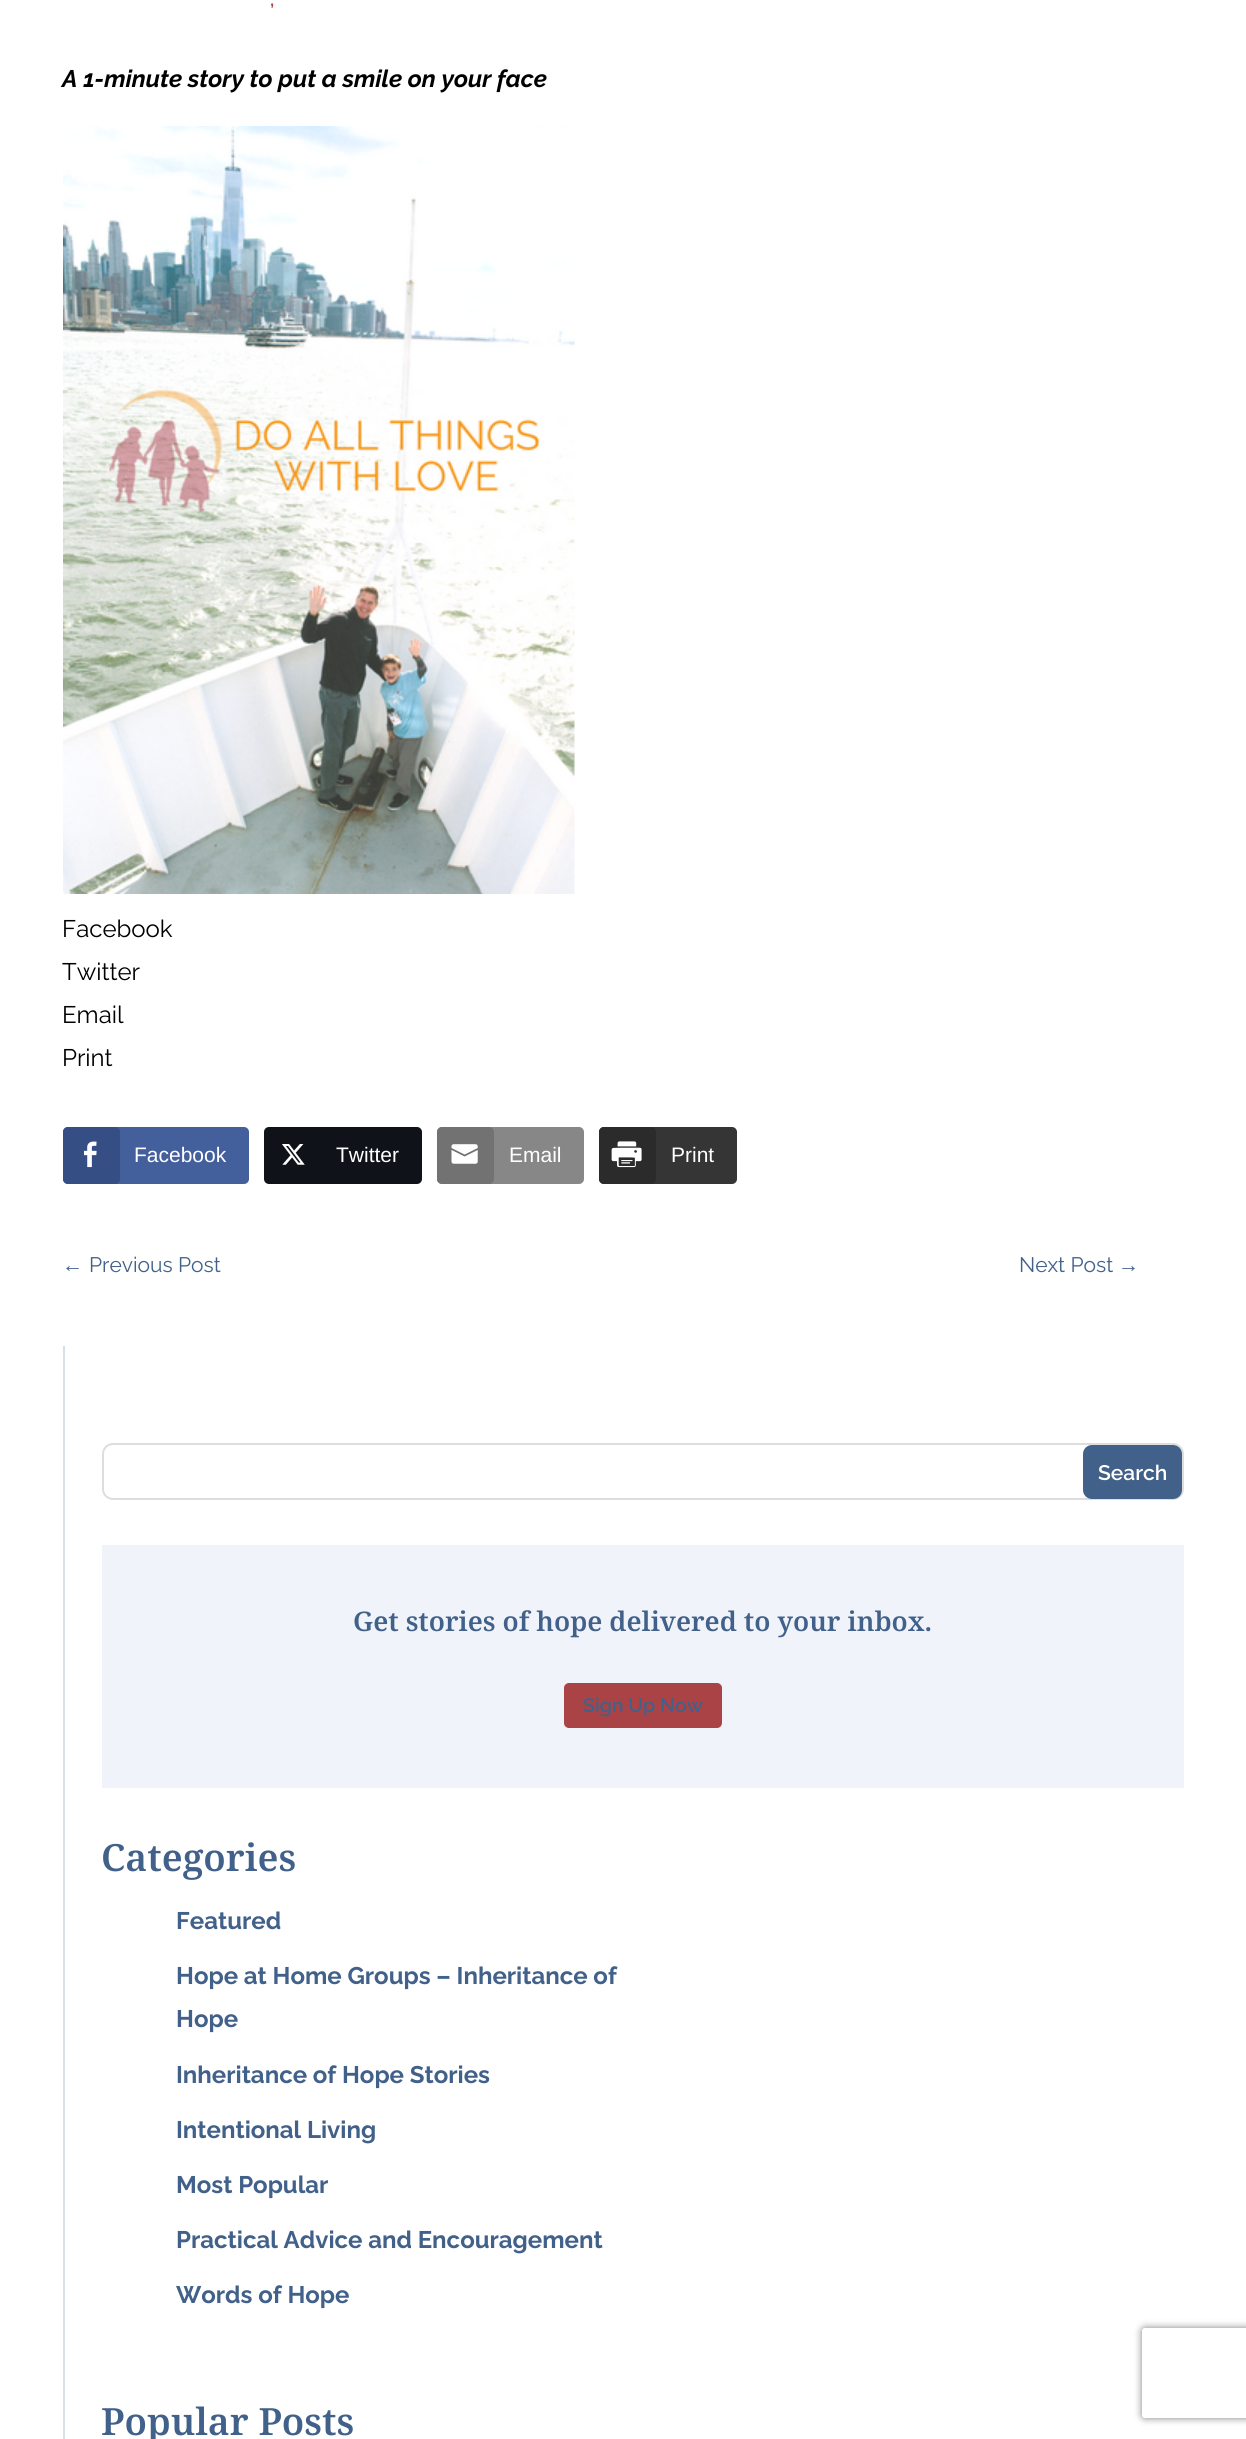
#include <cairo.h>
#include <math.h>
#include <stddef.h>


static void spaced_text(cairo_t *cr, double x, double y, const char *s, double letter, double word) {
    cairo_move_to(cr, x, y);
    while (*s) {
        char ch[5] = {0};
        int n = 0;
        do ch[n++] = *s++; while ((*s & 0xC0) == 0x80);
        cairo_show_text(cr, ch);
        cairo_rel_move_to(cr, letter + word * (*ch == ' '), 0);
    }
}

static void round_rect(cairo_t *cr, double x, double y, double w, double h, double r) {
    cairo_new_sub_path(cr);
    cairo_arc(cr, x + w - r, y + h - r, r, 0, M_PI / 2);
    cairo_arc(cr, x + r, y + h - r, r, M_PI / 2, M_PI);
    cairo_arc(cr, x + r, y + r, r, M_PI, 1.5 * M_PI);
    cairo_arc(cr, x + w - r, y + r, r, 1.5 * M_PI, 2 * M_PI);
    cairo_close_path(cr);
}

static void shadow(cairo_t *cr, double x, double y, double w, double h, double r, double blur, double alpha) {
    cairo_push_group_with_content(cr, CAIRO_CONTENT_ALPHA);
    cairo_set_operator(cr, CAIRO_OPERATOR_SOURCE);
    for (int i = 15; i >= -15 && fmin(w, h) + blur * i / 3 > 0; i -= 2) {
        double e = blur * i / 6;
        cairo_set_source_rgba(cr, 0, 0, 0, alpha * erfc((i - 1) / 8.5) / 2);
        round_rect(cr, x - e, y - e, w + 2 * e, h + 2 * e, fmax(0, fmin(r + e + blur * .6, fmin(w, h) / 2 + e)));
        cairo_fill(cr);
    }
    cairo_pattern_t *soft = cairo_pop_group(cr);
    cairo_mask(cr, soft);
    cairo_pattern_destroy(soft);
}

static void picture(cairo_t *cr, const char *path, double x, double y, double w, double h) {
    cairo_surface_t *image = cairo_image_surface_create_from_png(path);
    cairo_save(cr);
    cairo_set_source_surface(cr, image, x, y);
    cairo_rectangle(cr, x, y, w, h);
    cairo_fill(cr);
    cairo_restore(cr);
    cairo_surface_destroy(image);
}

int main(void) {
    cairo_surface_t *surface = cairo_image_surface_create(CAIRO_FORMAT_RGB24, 1246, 2439);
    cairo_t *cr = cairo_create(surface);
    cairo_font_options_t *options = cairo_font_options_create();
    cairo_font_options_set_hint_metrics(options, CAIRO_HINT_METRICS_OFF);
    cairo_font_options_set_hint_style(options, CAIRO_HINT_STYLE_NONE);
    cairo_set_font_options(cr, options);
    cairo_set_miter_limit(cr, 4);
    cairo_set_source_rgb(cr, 1, 1, 1);
    cairo_paint(cr);
    cairo_select_font_face(cr, "Raleway SemiBold", CAIRO_FONT_SLANT_NORMAL, CAIRO_FONT_WEIGHT_NORMAL);
    cairo_set_font_size(cr, 19.5);
    cairo_set_source_rgb(cr, 0.667, 0.263, 0.275);
    spaced_text(cr, 270, 6, ",", 2, 0);
    cairo_select_font_face(cr, "Raleway", CAIRO_FONT_SLANT_ITALIC, CAIRO_FONT_WEIGHT_BOLD);
    cairo_set_font_size(cr, 24);
    cairo_set_source_rgb(cr, 0, 0, 0);
    cairo_move_to(cr, 62, 87);
    cairo_show_text(cr, "A 1-minute story to put a smile on your face");
    picture(cr, "img1.png", 63, 126, 512, 768);
    cairo_select_font_face(cr, "Raleway", CAIRO_FONT_SLANT_NORMAL, CAIRO_FONT_WEIGHT_NORMAL);
    cairo_move_to(cr, 62, 937);
    cairo_show_text(cr, "Facebook");
    cairo_move_to(cr, 62, 980);
    cairo_show_text(cr, "Twitter");
    cairo_move_to(cr, 62, 1023);
    cairo_show_text(cr, "Email");
    cairo_move_to(cr, 62, 1066);
    cairo_show_text(cr, "Print");
    cairo_set_source_rgb(cr, 0.263, 0.376, 0.612);
    round_rect(cr, 63, 1127, 186, 57, 5);
    cairo_fill(cr);
    cairo_set_source_rgb(cr, 0.208, 0.306, 0.514);
    round_rect(cr, 63, 1127, 57, 57, 5);
    cairo_fill(cr);
    picture(cr, "img2.png", 84, 1141, 13, 27);
    cairo_select_font_face(cr, "Liberation Sans", CAIRO_FONT_SLANT_NORMAL, CAIRO_FONT_WEIGHT_NORMAL);
    cairo_set_font_size(cr, 21);
    cairo_set_source_rgb(cr, 1, 1, 1);
    cairo_move_to(cr, 134, 1162);
    cairo_show_text(cr, "Facebook");
    cairo_set_source_rgb(cr, 0.059, 0.078, 0.098);
    round_rect(cr, 264, 1127, 158, 57, 5);
    cairo_fill(cr);
    picture(cr, "img3.png", 282, 1144, 23, 21);
    cairo_set_source_rgb(cr, 1, 1, 1);
    cairo_move_to(cr, 336, 1162);
    cairo_show_text(cr, "Twitter");
    cairo_set_source_rgb(cr, 0.529, 0.529, 0.529);
    round_rect(cr, 437, 1127, 147, 57, 5);
    cairo_fill(cr);
    cairo_set_source_rgb(cr, 0.447, 0.447, 0.447);
    round_rect(cr, 437, 1127, 57, 57, 5);
    cairo_fill(cr);
    picture(cr, "img4.png", 451, 1144, 27, 20);
    cairo_set_source_rgb(cr, 1, 1, 1);
    cairo_move_to(cr, 509, 1162);
    cairo_show_text(cr, "Email");
    cairo_set_source_rgb(cr, 0.208, 0.208, 0.208);
    round_rect(cr, 599, 1127, 138, 57, 5);
    cairo_fill(cr);
    cairo_set_source_rgb(cr, 0.169, 0.169, 0.169);
    round_rect(cr, 599, 1127, 57, 57, 5);
    cairo_fill(cr);
    picture(cr, "img5.png", 611, 1141, 31, 27);
    cairo_set_source_rgb(cr, 1, 1, 1);
    cairo_move_to(cr, 671, 1162);
    cairo_show_text(cr, "Print");
    cairo_select_font_face(cr, "Liberation Serif", CAIRO_FONT_SLANT_NORMAL, CAIRO_FONT_WEIGHT_NORMAL);
    cairo_set_source_rgb(cr, 0.255, 0.38, 0.541);
    cairo_move_to(cr, 62, 1272);
    cairo_show_text(cr, "←");
    cairo_select_font_face(cr, "Raleway", CAIRO_FONT_SLANT_NORMAL, CAIRO_FONT_WEIGHT_NORMAL);
    cairo_move_to(cr, 89, 1272);
    cairo_show_text(cr, "Previous Post");
    cairo_move_to(cr, 1019, 1272);
    cairo_show_text(cr, "Next Post");
    cairo_select_font_face(cr, "Liberation Serif", CAIRO_FONT_SLANT_NORMAL, CAIRO_FONT_WEIGHT_NORMAL);
    cairo_move_to(cr, 1118, 1272);
    cairo_show_text(cr, "→");
    cairo_set_source_rgb(cr, 0.851, 0.875, 0.91);
    cairo_rectangle(cr, 63, 1346, 2, 1093);
    cairo_fill(cr);
    round_rect(cr, 103, 1444, 1080, 55, 10);
    cairo_set_source_rgb(cr, 0.867, 0.867, 0.867);
    cairo_stroke(cr);
    cairo_set_source_rgb(cr, 0.255, 0.38, 0.541);
    round_rect(cr, 1083, 1445, 99, 54, 9);
    cairo_fill(cr);
    cairo_select_font_face(cr, "Raleway SemiBold", CAIRO_FONT_SLANT_NORMAL, CAIRO_FONT_WEIGHT_NORMAL);
    cairo_set_source_rgb(cr, 1, 1, 1);
    cairo_move_to(cr, 1098, 1480);
    cairo_show_text(cr, "Search");
    cairo_set_source_rgb(cr, 0.941, 0.953, 0.973);
    cairo_rectangle(cr, 102, 1545, 1082, 243);
    cairo_fill(cr);
    cairo_select_font_face(cr, "Noto Serif SemiBold", CAIRO_FONT_SLANT_NORMAL, CAIRO_FONT_WEIGHT_NORMAL);
    cairo_set_font_size(cr, 27);
    cairo_set_source_rgb(cr, 0.255, 0.38, 0.541);
    cairo_move_to(cr, 353, 1631);
    cairo_show_text(cr, "Get stories of hope delivered to your inbox.");
    cairo_set_source_rgb(cr, 0.667, 0.263, 0.275);
    round_rect(cr, 564, 1683, 158, 45, 5);
    cairo_fill(cr);
    cairo_select_font_face(cr, "Raleway SemiBold", CAIRO_FONT_SLANT_NORMAL, CAIRO_FONT_WEIGHT_NORMAL);
    cairo_set_font_size(cr, 19.5);
    cairo_set_source_rgb(cr, 0.255, 0.38, 0.541);
    cairo_move_to(cr, 583, 1712);
    cairo_show_text(cr, "Sign Up Now");
    cairo_select_font_face(cr, "Noto Serif SemiBold", CAIRO_FONT_SLANT_NORMAL, CAIRO_FONT_WEIGHT_NORMAL);
    cairo_set_font_size(cr, 37.5);
    cairo_move_to(cr, 101, 1871);
    cairo_show_text(cr, "Categories");
    cairo_select_font_face(cr, "Raleway", CAIRO_FONT_SLANT_NORMAL, CAIRO_FONT_WEIGHT_BOLD);
    cairo_set_font_size(cr, 24);
    cairo_move_to(cr, 176, 1929);
    cairo_show_text(cr, "Featured");
    cairo_move_to(cr, 176, 1984);
    cairo_show_text(cr, "Hope at Home Groups – Inheritance of");
    cairo_move_to(cr, 176, 2027);
    cairo_show_text(cr, "Hope");
    cairo_move_to(cr, 176, 2083);
    cairo_show_text(cr, "Inheritance of Hope Stories");
    cairo_move_to(cr, 176, 2138);
    cairo_show_text(cr, "Intentional Living");
    cairo_move_to(cr, 176, 2193);
    cairo_show_text(cr, "Most Popular");
    cairo_move_to(cr, 176, 2248);
    cairo_show_text(cr, "Practical Advice and Encouragement");
    cairo_move_to(cr, 176, 2303);
    cairo_show_text(cr, "Words of Hope");
    cairo_select_font_face(cr, "Noto Serif SemiBold", CAIRO_FONT_SLANT_NORMAL, CAIRO_FONT_WEIGHT_NORMAL);
    cairo_set_font_size(cr, 37.5);
    cairo_move_to(cr, 101, 2435);
    cairo_show_text(cr, "Popular Posts");
    cairo_save(cr);
    cairo_set_fill_rule(cr, CAIRO_FILL_RULE_EVEN_ODD);
    cairo_new_path(cr);
    cairo_move_to(cr, 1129, 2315);
    cairo_line_to(cr, 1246, 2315);
    cairo_line_to(cr, 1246, 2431);
    cairo_line_to(cr, 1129, 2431);
    cairo_close_path(cr);
    cairo_move_to(cr, 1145, 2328);
    cairo_line_to(cr, 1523, 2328);
    cairo_curve_to(cr, 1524.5, 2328, 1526, 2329.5, 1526, 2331);
    cairo_line_to(cr, 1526, 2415);
    cairo_curve_to(cr, 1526, 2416.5, 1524.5, 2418, 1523, 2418);
    cairo_line_to(cr, 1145, 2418);
    cairo_curve_to(cr, 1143.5, 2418, 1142, 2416.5, 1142, 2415);
    cairo_line_to(cr, 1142, 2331);
    cairo_curve_to(cr, 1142, 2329.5, 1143.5, 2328, 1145, 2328);
    cairo_close_path(cr);
    cairo_clip(cr);
    cairo_set_source_rgb(cr, 0.502, 0.502, 0.502);
    shadow(cr, 1142, 2328, 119, 90, 3, 4, 1);
    cairo_restore(cr);
    cairo_surface_write_to_png(surface, "page.png");
    cairo_font_options_destroy(options);
    cairo_destroy(cr);
    cairo_surface_destroy(surface);
    return 0;
}
